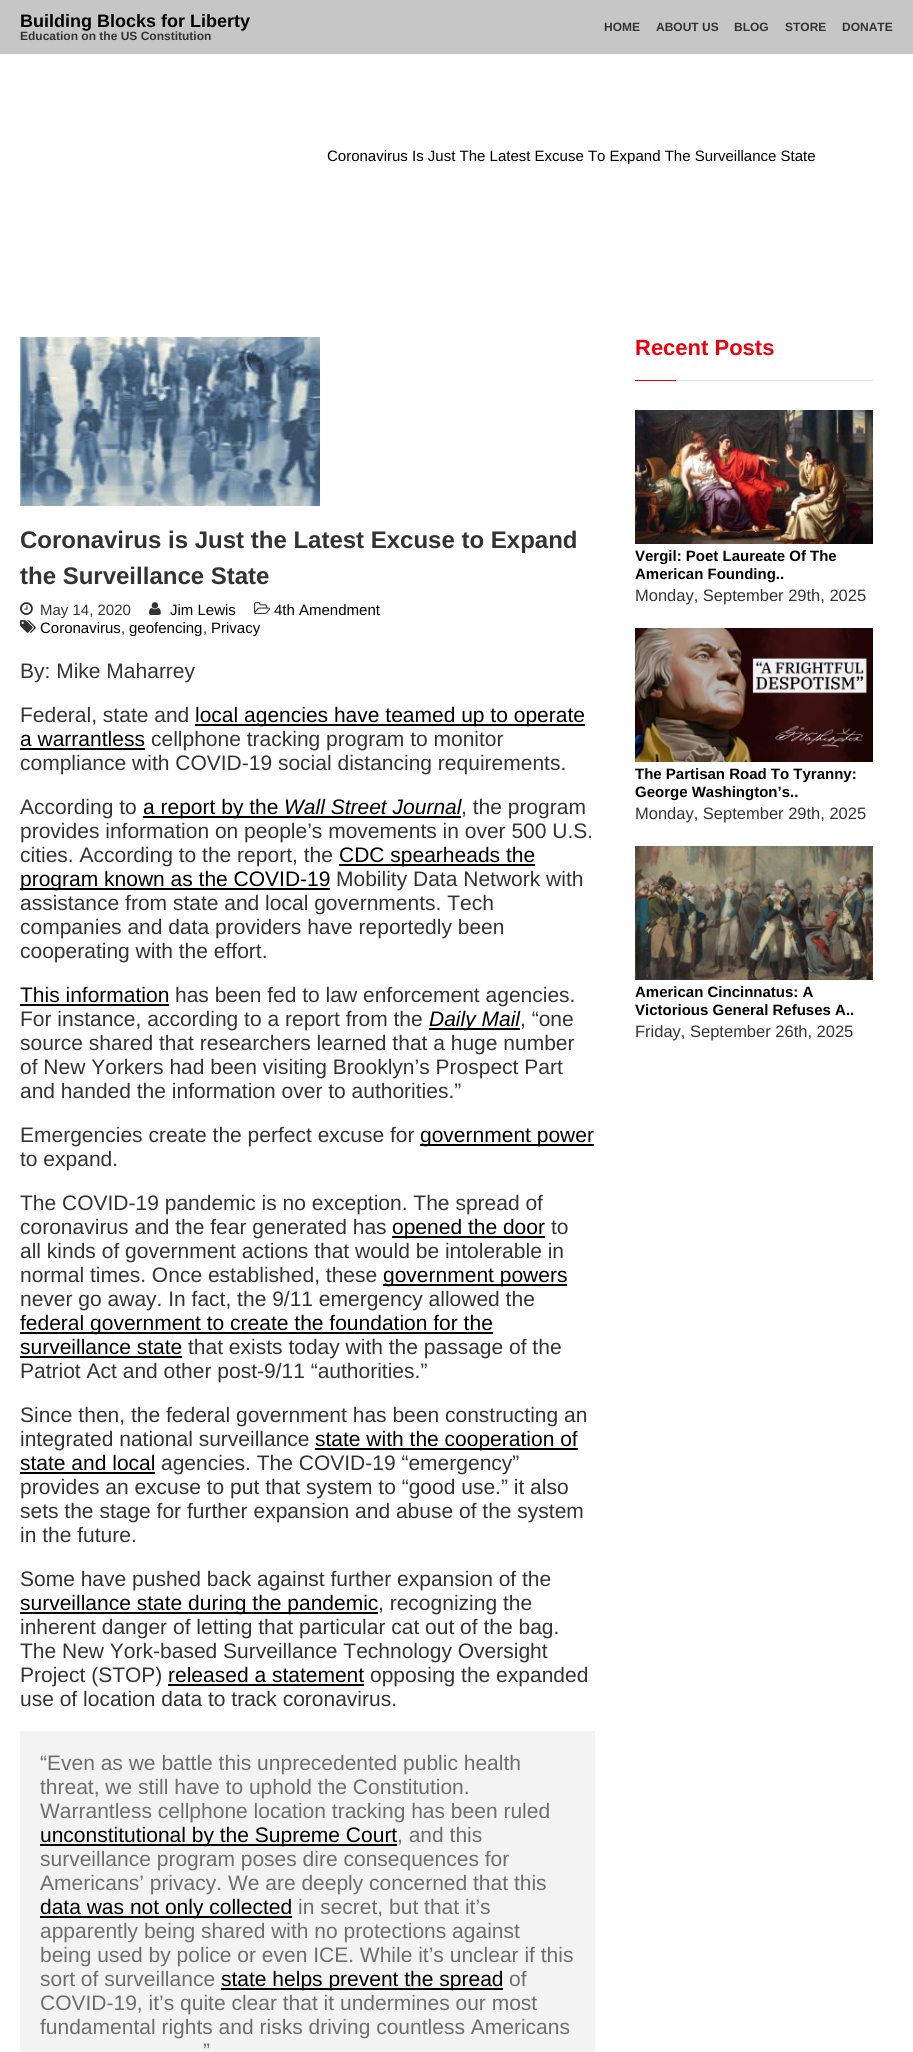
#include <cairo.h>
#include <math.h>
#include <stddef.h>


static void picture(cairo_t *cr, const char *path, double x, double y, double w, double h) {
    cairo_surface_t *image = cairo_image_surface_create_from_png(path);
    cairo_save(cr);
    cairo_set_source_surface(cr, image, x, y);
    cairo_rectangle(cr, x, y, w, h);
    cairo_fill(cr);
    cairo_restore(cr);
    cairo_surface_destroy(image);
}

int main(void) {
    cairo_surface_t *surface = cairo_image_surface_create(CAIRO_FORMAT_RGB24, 913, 2052);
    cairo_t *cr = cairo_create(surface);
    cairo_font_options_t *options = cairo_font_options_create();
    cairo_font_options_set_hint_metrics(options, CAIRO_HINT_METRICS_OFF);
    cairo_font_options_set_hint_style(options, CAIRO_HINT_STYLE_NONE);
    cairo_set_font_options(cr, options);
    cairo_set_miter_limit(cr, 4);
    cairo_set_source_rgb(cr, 1, 1, 1);
    cairo_paint(cr);
    cairo_set_source_rgb(cr, 0.776, 0.776, 0.776);
    cairo_rectangle(cr, 0, 0, 913, 54);
    cairo_fill(cr);
    cairo_select_font_face(cr, "Liberation Sans", CAIRO_FONT_SLANT_NORMAL, CAIRO_FONT_WEIGHT_BOLD);
    cairo_set_font_size(cr, 18);
    cairo_set_source_rgb(cr, 0, 0, 0);
    cairo_move_to(cr, 20, 27);
    cairo_show_text(cr, "Building Blocks for Liberty");
    cairo_set_font_size(cr, 12);
    cairo_set_source_rgb(cr, 0.2, 0.2, 0.2);
    cairo_move_to(cr, 20, 40);
    cairo_show_text(cr, "Education on the US Constitution");
    cairo_move_to(cr, 604, 31);
    cairo_show_text(cr, "HOME");
    cairo_move_to(cr, 656, 31);
    cairo_show_text(cr, "ABOUT US");
    cairo_move_to(cr, 734, 31);
    cairo_show_text(cr, "BLOG");
    cairo_move_to(cr, 785, 31);
    cairo_show_text(cr, "STORE");
    cairo_move_to(cr, 842, 31);
    cairo_show_text(cr, "DONATE");
    cairo_select_font_face(cr, "Liberation Sans", CAIRO_FONT_SLANT_NORMAL, CAIRO_FONT_WEIGHT_NORMAL);
    cairo_set_font_size(cr, 15);
    cairo_set_source_rgb(cr, 0, 0, 0);
    cairo_move_to(cr, 327, 161);
    cairo_show_text(cr, "Coronavirus Is Just The Latest Excuse To Expand The Surveillance State");
    picture(cr, "img1.png", 20, 337, 300, 169);
    cairo_select_font_face(cr, "Liberation Sans", CAIRO_FONT_SLANT_NORMAL, CAIRO_FONT_WEIGHT_BOLD);
    cairo_set_font_size(cr, 24);
    cairo_set_source_rgb(cr, 0.2, 0.2, 0.2);
    cairo_move_to(cr, 20, 548);
    cairo_show_text(cr, "Coronavirus is Just the Latest Excuse to Expand");
    cairo_move_to(cr, 20, 584);
    cairo_show_text(cr, "the Surveillance State");
    picture(cr, "img2.png", 20, 602, 13, 13);
    cairo_select_font_face(cr, "Liberation Sans", CAIRO_FONT_SLANT_NORMAL, CAIRO_FONT_WEIGHT_NORMAL);
    cairo_set_font_size(cr, 15);
    cairo_move_to(cr, 40, 615);
    cairo_show_text(cr, "May 14, 2020");
    picture(cr, "img3.png", 149, 602, 12, 13);
    cairo_set_source_rgb(cr, 0, 0, 0);
    cairo_move_to(cr, 170, 615);
    cairo_show_text(cr, "Jim Lewis");
    picture(cr, "img4.png", 254, 602, 16, 12);
    cairo_move_to(cr, 274, 615);
    cairo_show_text(cr, "4th Amendment");
    picture(cr, "img5.png", 20, 620, 16, 13);
    cairo_move_to(cr, 40, 633);
    cairo_show_text(cr, "Coronavirus");
    cairo_set_source_rgb(cr, 0.2, 0.2, 0.2);
    cairo_move_to(cr, 121, 633);
    cairo_show_text(cr, ",");
    cairo_set_source_rgb(cr, 0, 0, 0);
    cairo_move_to(cr, 129, 633);
    cairo_show_text(cr, "geofencing");
    cairo_set_source_rgb(cr, 0.2, 0.2, 0.2);
    cairo_move_to(cr, 203, 633);
    cairo_show_text(cr, ",");
    cairo_set_source_rgb(cr, 0, 0, 0);
    cairo_move_to(cr, 211, 633);
    cairo_show_text(cr, "Privacy");
    cairo_set_font_size(cr, 21);
    cairo_set_source_rgb(cr, 0.2, 0.2, 0.2);
    cairo_move_to(cr, 20, 678);
    cairo_show_text(cr, "By: Mike Maharrey");
    cairo_move_to(cr, 20, 722);
    cairo_show_text(cr, "Federal, state and");
    cairo_set_source_rgb(cr, 0, 0, 0);
    cairo_rectangle(cr, 195, 724, 390, 2);
    cairo_fill(cr);
    cairo_move_to(cr, 195, 722);
    cairo_show_text(cr, "local agencies have teamed up to operate");
    cairo_move_to(cr, 20, 746);
    cairo_show_text(cr, "a warrantless");
    cairo_rectangle(cr, 20, 748, 125, 2);
    cairo_fill(cr);
    cairo_set_source_rgb(cr, 0.2, 0.2, 0.2);
    cairo_move_to(cr, 151, 746);
    cairo_show_text(cr, "cellphone tracking program to monitor");
    cairo_move_to(cr, 20, 770);
    cairo_show_text(cr, "compliance with COVID-19 social distancing requirements.");
    cairo_move_to(cr, 20, 814);
    cairo_show_text(cr, "According to");
    cairo_set_source_rgb(cr, 0, 0, 0);
    cairo_rectangle(cr, 143, 816, 318, 2);
    cairo_fill(cr);
    cairo_move_to(cr, 143, 814);
    cairo_show_text(cr, "a report by the");
    cairo_select_font_face(cr, "Liberation Sans", CAIRO_FONT_SLANT_ITALIC, CAIRO_FONT_WEIGHT_NORMAL);
    cairo_move_to(cr, 284, 814);
    cairo_show_text(cr, "Wall Street Journal");
    cairo_select_font_face(cr, "Liberation Sans", CAIRO_FONT_SLANT_NORMAL, CAIRO_FONT_WEIGHT_NORMAL);
    cairo_set_source_rgb(cr, 0.2, 0.2, 0.2);
    cairo_move_to(cr, 461, 814);
    cairo_show_text(cr, ", the program");
    cairo_move_to(cr, 20, 838);
    cairo_show_text(cr, "provides information on people’s movements in over 500 U.S.");
    cairo_move_to(cr, 20, 862);
    cairo_show_text(cr, "cities. According to the report, the");
    cairo_set_source_rgb(cr, 0, 0, 0);
    cairo_rectangle(cr, 339, 864, 196, 2);
    cairo_fill(cr);
    cairo_move_to(cr, 339, 862);
    cairo_show_text(cr, "CDC spearheads the");
    cairo_rectangle(cr, 20, 888, 310, 2);
    cairo_fill(cr);
    cairo_move_to(cr, 20, 886);
    cairo_show_text(cr, "program known as the COVID-19");
    cairo_set_source_rgb(cr, 0.2, 0.2, 0.2);
    cairo_move_to(cr, 336, 886);
    cairo_show_text(cr, "Mobility Data Network with");
    cairo_move_to(cr, 20, 910);
    cairo_show_text(cr, "assistance from state and local governments. Tech");
    cairo_move_to(cr, 20, 934);
    cairo_show_text(cr, "companies and data providers have reportedly been");
    cairo_move_to(cr, 20, 958);
    cairo_show_text(cr, "cooperating with the effort.");
    cairo_set_source_rgb(cr, 0, 0, 0);
    cairo_move_to(cr, 20, 1002);
    cairo_show_text(cr, "This information");
    cairo_rectangle(cr, 20, 1004, 149, 2);
    cairo_fill(cr);
    cairo_set_source_rgb(cr, 0.2, 0.2, 0.2);
    cairo_move_to(cr, 175, 1002);
    cairo_show_text(cr, "has been fed to law enforcement agencies.");
    cairo_move_to(cr, 20, 1026);
    cairo_show_text(cr, "For instance, according to a report from the");
    cairo_set_source_rgb(cr, 0, 0, 0);
    cairo_rectangle(cr, 429, 1028, 91, 2);
    cairo_fill(cr);
    cairo_select_font_face(cr, "Liberation Sans", CAIRO_FONT_SLANT_ITALIC, CAIRO_FONT_WEIGHT_NORMAL);
    cairo_move_to(cr, 429, 1026);
    cairo_show_text(cr, "Daily Mail");
    cairo_select_font_face(cr, "Liberation Sans", CAIRO_FONT_SLANT_NORMAL, CAIRO_FONT_WEIGHT_NORMAL);
    cairo_set_source_rgb(cr, 0.2, 0.2, 0.2);
    cairo_move_to(cr, 520, 1026);
    cairo_show_text(cr, ", “one");
    cairo_move_to(cr, 20, 1050);
    cairo_show_text(cr, "source shared that researchers learned that a huge number");
    cairo_move_to(cr, 20, 1074);
    cairo_show_text(cr, "of New Yorkers had been visiting Brooklyn’s Prospect Part");
    cairo_move_to(cr, 20, 1098);
    cairo_show_text(cr, "and handed the information over to authorities.”");
    cairo_move_to(cr, 20, 1142);
    cairo_show_text(cr, "Emergencies create the perfect excuse for");
    cairo_set_source_rgb(cr, 0, 0, 0);
    cairo_rectangle(cr, 420, 1144, 174, 2);
    cairo_fill(cr);
    cairo_move_to(cr, 420, 1142);
    cairo_show_text(cr, "government power");
    cairo_set_source_rgb(cr, 0.2, 0.2, 0.2);
    cairo_move_to(cr, 20, 1166);
    cairo_show_text(cr, "to expand.");
    cairo_move_to(cr, 20, 1210);
    cairo_show_text(cr, "The COVID-19 pandemic is no exception. The spread of");
    cairo_move_to(cr, 20, 1234);
    cairo_show_text(cr, "coronavirus and the fear generated has");
    cairo_set_source_rgb(cr, 0, 0, 0);
    cairo_rectangle(cr, 392, 1236, 153, 2);
    cairo_fill(cr);
    cairo_move_to(cr, 392, 1234);
    cairo_show_text(cr, "opened the door");
    cairo_set_source_rgb(cr, 0.2, 0.2, 0.2);
    cairo_move_to(cr, 551, 1234);
    cairo_show_text(cr, "to");
    cairo_move_to(cr, 20, 1258);
    cairo_show_text(cr, "all kinds of government actions that would be intolerable in");
    cairo_move_to(cr, 20, 1282);
    cairo_show_text(cr, "normal times. Once established, these");
    cairo_set_source_rgb(cr, 0, 0, 0);
    cairo_rectangle(cr, 383, 1284, 184, 2);
    cairo_fill(cr);
    cairo_move_to(cr, 383, 1282);
    cairo_show_text(cr, "government powers");
    cairo_set_source_rgb(cr, 0.2, 0.2, 0.2);
    cairo_move_to(cr, 20, 1306);
    cairo_show_text(cr, "never go away. In fact, the 9/11 emergency allowed the");
    cairo_set_source_rgb(cr, 0, 0, 0);
    cairo_rectangle(cr, 20, 1332, 473, 2);
    cairo_fill(cr);
    cairo_move_to(cr, 20, 1330);
    cairo_show_text(cr, "federal government to create the foundation for the");
    cairo_move_to(cr, 20, 1354);
    cairo_show_text(cr, "surveillance state");
    cairo_rectangle(cr, 20, 1356, 162, 2);
    cairo_fill(cr);
    cairo_set_source_rgb(cr, 0.2, 0.2, 0.2);
    cairo_move_to(cr, 188, 1354);
    cairo_show_text(cr, "that exists today with the passage of the");
    cairo_move_to(cr, 20, 1378);
    cairo_show_text(cr, "Patriot Act and other post-9/11 “authorities.”");
    cairo_move_to(cr, 20, 1422);
    cairo_show_text(cr, "Since then, the federal government has been constructing an");
    cairo_move_to(cr, 20, 1446);
    cairo_show_text(cr, "integrated national surveillance");
    cairo_set_source_rgb(cr, 0, 0, 0);
    cairo_rectangle(cr, 315, 1448, 263, 2);
    cairo_fill(cr);
    cairo_move_to(cr, 315, 1446);
    cairo_show_text(cr, "state with the cooperation of");
    cairo_move_to(cr, 20, 1470);
    cairo_show_text(cr, "state and local");
    cairo_rectangle(cr, 20, 1472, 135, 2);
    cairo_fill(cr);
    cairo_set_source_rgb(cr, 0.2, 0.2, 0.2);
    cairo_move_to(cr, 161, 1470);
    cairo_show_text(cr, "agencies. The COVID-19 “emergency”");
    cairo_move_to(cr, 20, 1494);
    cairo_show_text(cr, "provides an excuse to put that system to “good use.” it also");
    cairo_move_to(cr, 20, 1518);
    cairo_show_text(cr, "sets the stage for further expansion and abuse of the system");
    cairo_move_to(cr, 20, 1542);
    cairo_show_text(cr, "in the future.");
    cairo_move_to(cr, 20, 1586);
    cairo_show_text(cr, "Some have pushed back against further expansion of the");
    cairo_set_source_rgb(cr, 0, 0, 0);
    cairo_rectangle(cr, 20, 1612, 358, 2);
    cairo_fill(cr);
    cairo_move_to(cr, 20, 1610);
    cairo_show_text(cr, "surveillance state during the pandemic");
    cairo_set_source_rgb(cr, 0.2, 0.2, 0.2);
    cairo_move_to(cr, 378, 1610);
    cairo_show_text(cr, ", recognizing the");
    cairo_move_to(cr, 20, 1634);
    cairo_show_text(cr, "inherent danger of letting that particular cat out of the bag.");
    cairo_move_to(cr, 20, 1658);
    cairo_show_text(cr, "The New York-based Surveillance Technology Oversight");
    cairo_move_to(cr, 20, 1682);
    cairo_show_text(cr, "Project (STOP)");
    cairo_set_source_rgb(cr, 0, 0, 0);
    cairo_move_to(cr, 168, 1682);
    cairo_show_text(cr, "released a statement");
    cairo_rectangle(cr, 168, 1684, 196, 2);
    cairo_fill(cr);
    cairo_set_source_rgb(cr, 0.2, 0.2, 0.2);
    cairo_move_to(cr, 370, 1682);
    cairo_show_text(cr, "opposing the expanded");
    cairo_move_to(cr, 20, 1706);
    cairo_show_text(cr, "use of location data to track coronavirus.");
    cairo_set_source_rgb(cr, 0.953, 0.953, 0.953);
    cairo_rectangle(cr, 20, 1731, 575, 321);
    cairo_fill(cr);
    cairo_set_source_rgb(cr, 0.427, 0.427, 0.427);
    cairo_move_to(cr, 40, 1770);
    cairo_show_text(cr, "“Even as we battle this unprecedented public health");
    cairo_move_to(cr, 40, 1794);
    cairo_show_text(cr, "threat, we still have to uphold the Constitution.");
    cairo_move_to(cr, 40, 1818);
    cairo_show_text(cr, "Warrantless cellphone location tracking has been ruled");
    cairo_set_source_rgb(cr, 0, 0, 0);
    cairo_rectangle(cr, 40, 1844, 357, 2);
    cairo_fill(cr);
    cairo_move_to(cr, 40, 1842);
    cairo_show_text(cr, "unconstitutional by the Supreme Court");
    cairo_set_source_rgb(cr, 0.427, 0.427, 0.427);
    cairo_move_to(cr, 397, 1842);
    cairo_show_text(cr, ", and this");
    cairo_move_to(cr, 40, 1866);
    cairo_show_text(cr, "surveillance program poses dire consequences for");
    cairo_move_to(cr, 40, 1890);
    cairo_show_text(cr, "Americans’ privacy. We are deeply concerned that this");
    cairo_set_source_rgb(cr, 0, 0, 0);
    cairo_rectangle(cr, 40, 1916, 252, 2);
    cairo_fill(cr);
    cairo_move_to(cr, 40, 1914);
    cairo_show_text(cr, "data was not only collected");
    cairo_set_source_rgb(cr, 0.427, 0.427, 0.427);
    cairo_move_to(cr, 298, 1914);
    cairo_show_text(cr, "in secret, but that it’s");
    cairo_move_to(cr, 40, 1938);
    cairo_show_text(cr, "apparently being shared with no protections against");
    cairo_move_to(cr, 40, 1962);
    cairo_show_text(cr, "being used by police or even ICE. While it’s unclear if this");
    cairo_move_to(cr, 40, 1986);
    cairo_show_text(cr, "sort of surveillance");
    cairo_set_source_rgb(cr, 0, 0, 0);
    cairo_rectangle(cr, 221, 1988, 282, 2);
    cairo_fill(cr);
    cairo_move_to(cr, 221, 1986);
    cairo_show_text(cr, "state helps prevent the spread");
    cairo_set_source_rgb(cr, 0.427, 0.427, 0.427);
    cairo_move_to(cr, 509, 1986);
    cairo_show_text(cr, "of");
    cairo_move_to(cr, 40, 2010);
    cairo_show_text(cr, "COVID-19, it’s quite clear that it undermines our most");
    cairo_move_to(cr, 40, 2034);
    cairo_show_text(cr, "fundamental rights and risks driving countless Americans");
    cairo_move_to(cr, 203, 2058);
    cairo_show_text(cr, "”");
    cairo_set_source_rgb(cr, 0.898, 0.898, 0.898);
    cairo_rectangle(cr, 676, 380, 197, 1);
    cairo_fill(cr);
    cairo_select_font_face(cr, "Liberation Sans", CAIRO_FONT_SLANT_NORMAL, CAIRO_FONT_WEIGHT_BOLD);
    cairo_set_font_size(cr, 22);
    cairo_set_source_rgb(cr, 0.918, 0, 0.051);
    cairo_move_to(cr, 635, 355);
    cairo_show_text(cr, "Recent Posts");
    cairo_rectangle(cr, 635, 380, 41, 1);
    cairo_fill(cr);
    picture(cr, "img6.png", 635, 410, 238, 134);
    cairo_set_font_size(cr, 15);
    cairo_set_source_rgb(cr, 0, 0, 0);
    cairo_move_to(cr, 635, 561);
    cairo_show_text(cr, "Vergil: Poet Laureate Of The");
    cairo_move_to(cr, 635, 579);
    cairo_show_text(cr, "American Founding..");
    cairo_select_font_face(cr, "Liberation Sans", CAIRO_FONT_SLANT_NORMAL, CAIRO_FONT_WEIGHT_NORMAL);
    cairo_set_font_size(cr, 16.5);
    cairo_set_source_rgb(cr, 0.2, 0.2, 0.2);
    cairo_move_to(cr, 635, 601);
    cairo_show_text(cr, "Monday, September 29th, 2025");
    picture(cr, "img7.png", 635, 628, 238, 134);
    cairo_select_font_face(cr, "Liberation Sans", CAIRO_FONT_SLANT_NORMAL, CAIRO_FONT_WEIGHT_BOLD);
    cairo_set_font_size(cr, 15);
    cairo_set_source_rgb(cr, 0, 0, 0);
    cairo_move_to(cr, 635, 779);
    cairo_show_text(cr, "The Partisan Road To Tyranny:");
    cairo_move_to(cr, 635, 797);
    cairo_show_text(cr, "George Washington’s..");
    cairo_select_font_face(cr, "Liberation Sans", CAIRO_FONT_SLANT_NORMAL, CAIRO_FONT_WEIGHT_NORMAL);
    cairo_set_font_size(cr, 16.5);
    cairo_set_source_rgb(cr, 0.2, 0.2, 0.2);
    cairo_move_to(cr, 635, 819);
    cairo_show_text(cr, "Monday, September 29th, 2025");
    picture(cr, "img8.png", 635, 846, 238, 134);
    cairo_select_font_face(cr, "Liberation Sans", CAIRO_FONT_SLANT_NORMAL, CAIRO_FONT_WEIGHT_BOLD);
    cairo_set_font_size(cr, 15);
    cairo_set_source_rgb(cr, 0, 0, 0);
    cairo_move_to(cr, 635, 997);
    cairo_show_text(cr, "American Cincinnatus: A");
    cairo_move_to(cr, 635, 1015);
    cairo_show_text(cr, "Victorious General Refuses A..");
    cairo_select_font_face(cr, "Liberation Sans", CAIRO_FONT_SLANT_NORMAL, CAIRO_FONT_WEIGHT_NORMAL);
    cairo_set_font_size(cr, 16.5);
    cairo_set_source_rgb(cr, 0.2, 0.2, 0.2);
    cairo_move_to(cr, 635, 1037);
    cairo_show_text(cr, "Friday, September 26th, 2025");
    cairo_surface_write_to_png(surface, "page.png");
    cairo_font_options_destroy(options);
    cairo_destroy(cr);
    cairo_surface_destroy(surface);
    return 0;
}
